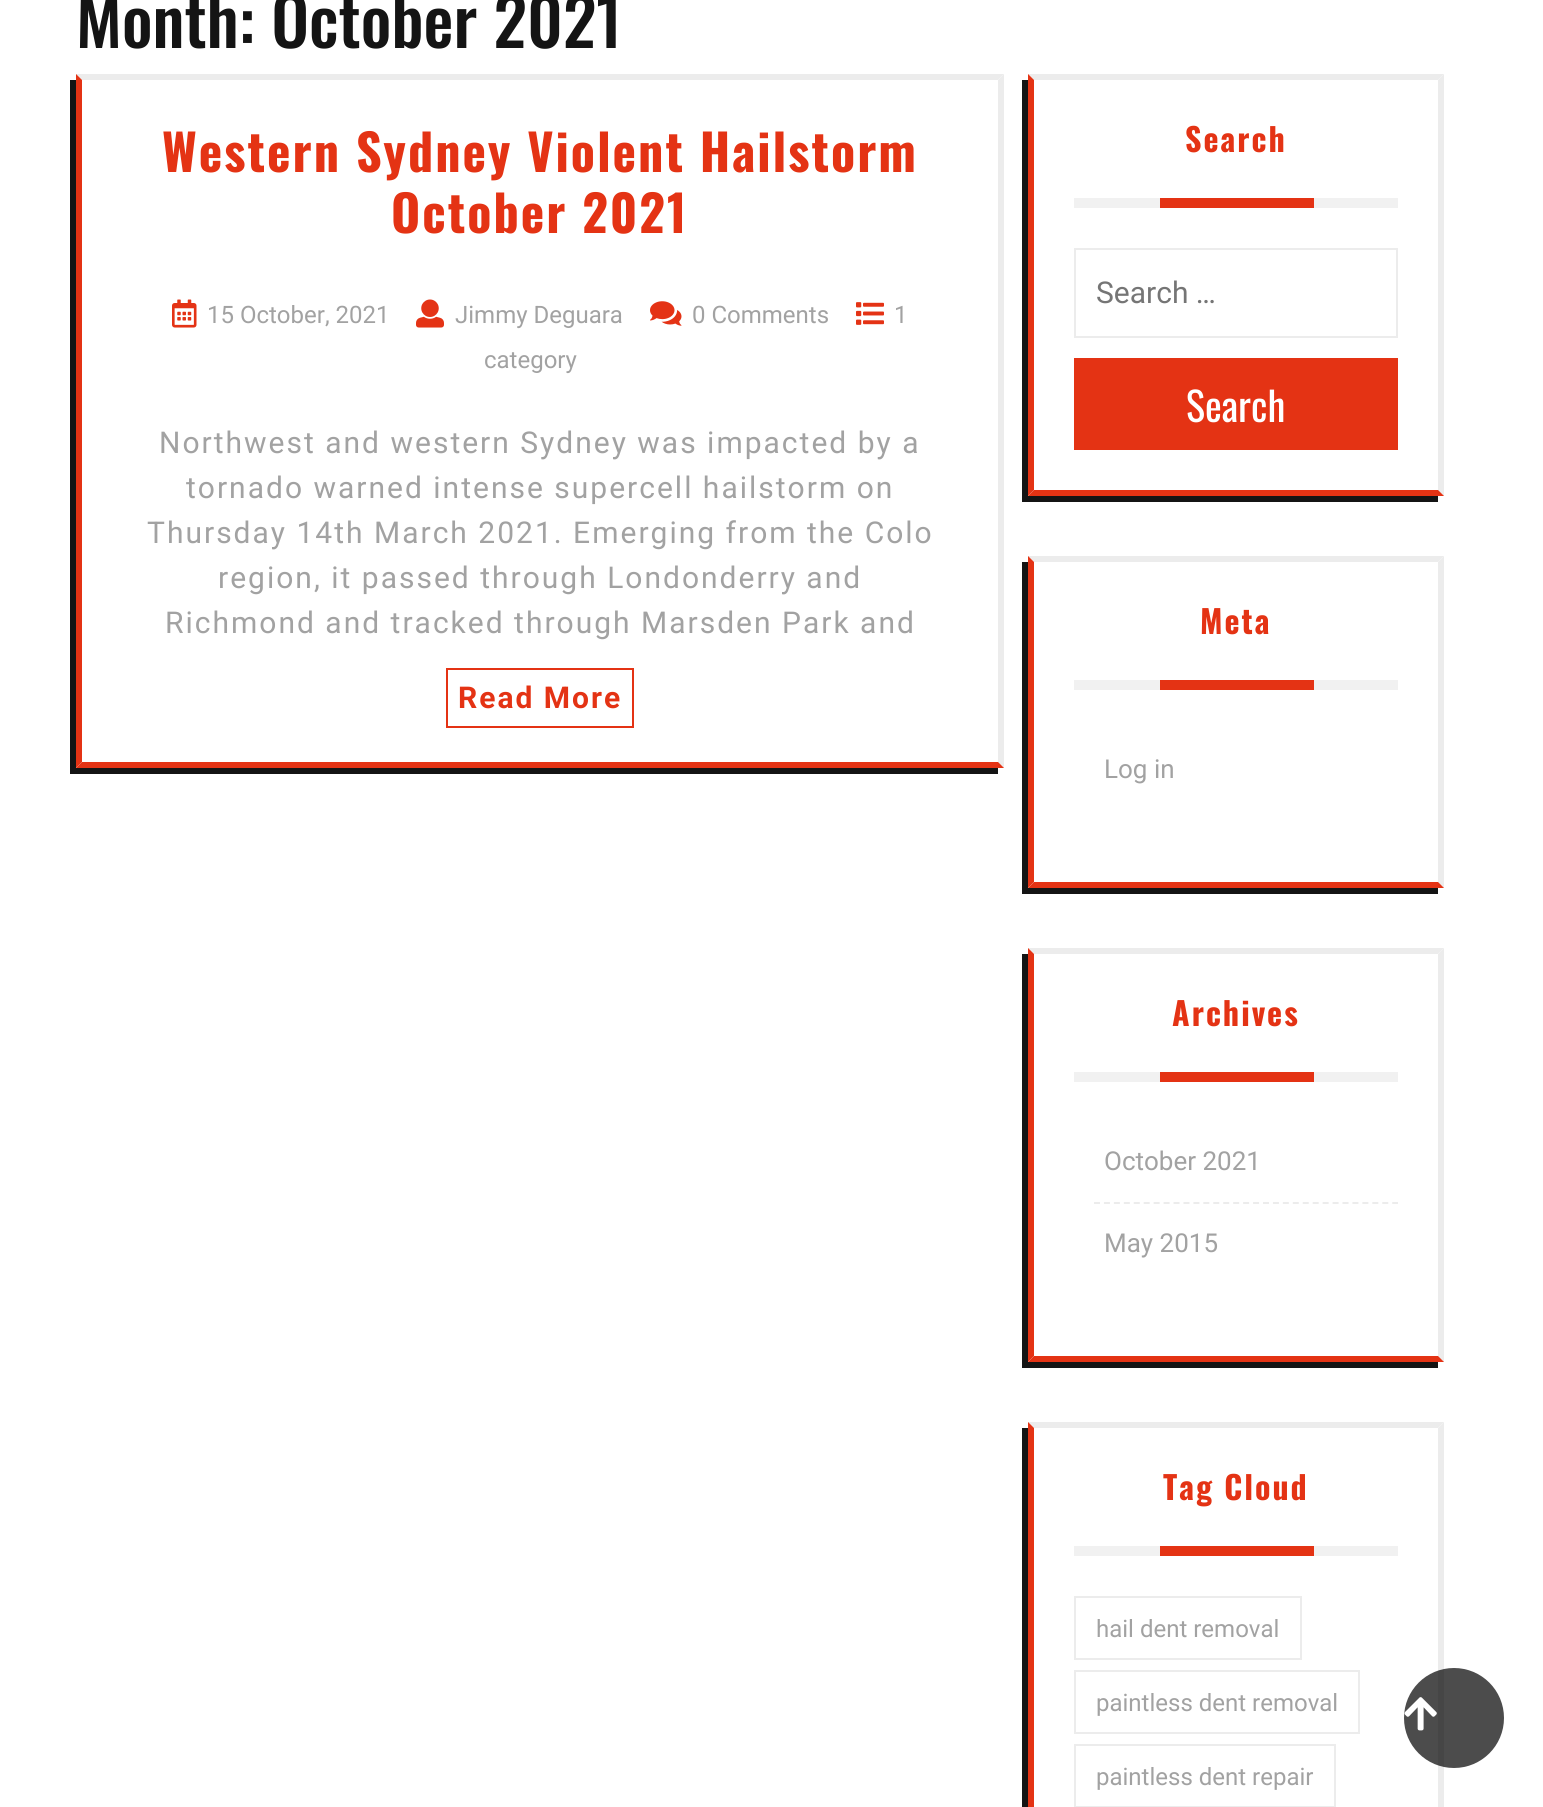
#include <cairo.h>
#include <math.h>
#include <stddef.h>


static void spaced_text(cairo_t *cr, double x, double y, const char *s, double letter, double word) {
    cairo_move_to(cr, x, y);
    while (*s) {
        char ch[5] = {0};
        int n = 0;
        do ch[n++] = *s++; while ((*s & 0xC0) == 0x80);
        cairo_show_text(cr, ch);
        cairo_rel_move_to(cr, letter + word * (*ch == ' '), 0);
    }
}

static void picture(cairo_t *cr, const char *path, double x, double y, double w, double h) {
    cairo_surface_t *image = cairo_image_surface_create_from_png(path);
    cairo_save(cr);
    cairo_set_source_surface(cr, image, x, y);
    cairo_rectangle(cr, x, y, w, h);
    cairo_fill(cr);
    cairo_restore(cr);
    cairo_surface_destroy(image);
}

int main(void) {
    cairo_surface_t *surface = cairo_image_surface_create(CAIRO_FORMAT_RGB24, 1543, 1807);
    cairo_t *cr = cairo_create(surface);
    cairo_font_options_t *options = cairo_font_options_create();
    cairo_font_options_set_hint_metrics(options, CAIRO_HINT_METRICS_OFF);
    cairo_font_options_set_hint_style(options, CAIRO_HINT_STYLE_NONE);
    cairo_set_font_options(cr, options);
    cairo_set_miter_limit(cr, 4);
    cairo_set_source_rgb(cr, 1, 1, 1);
    cairo_paint(cr);
    cairo_select_font_face(cr, "Oswald Medium", CAIRO_FONT_SLANT_NORMAL, CAIRO_FONT_WEIGHT_NORMAL);
    cairo_set_font_size(cr, 67.25);
    cairo_set_source_rgb(cr, 0.082, 0.082, 0.082);
    cairo_move_to(cr, 76, 48);
    cairo_show_text(cr, "Month: October 2021");
    cairo_new_path(cr);
    cairo_move_to(cr, 70, 80);
    cairo_line_to(cr, 70, 774);
    cairo_line_to(cr, 998, 774);
    cairo_line_to(cr, 998, 768);
    cairo_line_to(cr, 76, 768);
    cairo_line_to(cr, 76, 80);
    cairo_close_path(cr);
    cairo_fill(cr);
    cairo_set_source_rgb(cr, 0.922, 0.922, 0.922);
    cairo_new_path(cr);
    cairo_move_to(cr, 76, 74);
    cairo_line_to(cr, 1004, 74);
    cairo_line_to(cr, 998, 80);
    cairo_line_to(cr, 82, 80);
    cairo_close_path(cr);
    cairo_fill(cr);
    cairo_new_path(cr);
    cairo_move_to(cr, 1004, 74);
    cairo_line_to(cr, 1004, 768);
    cairo_line_to(cr, 998, 762);
    cairo_line_to(cr, 998, 80);
    cairo_close_path(cr);
    cairo_fill(cr);
    cairo_set_source_rgb(cr, 0.894, 0.2, 0.082);
    cairo_new_path(cr);
    cairo_move_to(cr, 1004, 768);
    cairo_line_to(cr, 76, 768);
    cairo_line_to(cr, 82, 762);
    cairo_line_to(cr, 998, 762);
    cairo_close_path(cr);
    cairo_fill(cr);
    cairo_new_path(cr);
    cairo_move_to(cr, 76, 768);
    cairo_line_to(cr, 76, 74);
    cairo_line_to(cr, 82, 80);
    cairo_line_to(cr, 82, 762);
    cairo_close_path(cr);
    cairo_fill(cr);
    cairo_select_font_face(cr, "Oswald", CAIRO_FONT_SLANT_NORMAL, CAIRO_FONT_WEIGHT_BOLD);
    cairo_set_font_size(cr, 50);
    spaced_text(cr, 162, 172, "Western Sydney Violent Hailstorm", 2, 0);
    spaced_text(cr, 391, 233, "October 2021", 2, 0);
    picture(cr, "img1.png", 172, 299, 25, 29);
    cairo_select_font_face(cr, "Roboto", CAIRO_FONT_SLANT_NORMAL, CAIRO_FONT_WEIGHT_NORMAL);
    cairo_set_font_size(cr, 24);
    cairo_set_source_rgb(cr, 0.635, 0.635, 0.635);
    cairo_move_to(cr, 207, 323);
    cairo_show_text(cr, "15 October, 2021");
    picture(cr, "img2.png", 416, 299, 28, 29);
    cairo_move_to(cr, 455, 323);
    cairo_show_text(cr, "Jimmy Deguara");
    picture(cr, "img3.png", 650, 301, 32, 25);
    cairo_move_to(cr, 692, 323);
    cairo_show_text(cr, "0 Comments");
    picture(cr, "img4.png", 856, 302, 28, 23);
    cairo_move_to(cr, 894, 323);
    cairo_show_text(cr, "1");
    cairo_move_to(cr, 484, 368);
    cairo_show_text(cr, "category");
    cairo_set_font_size(cr, 30);
    spaced_text(cr, 159, 453, "Northwest and western Sydney was impacted by a", 2, 0);
    spaced_text(cr, 186, 498, "tornado warned intense supercell hailstorm on", 2, 0);
    spaced_text(cr, 147, 543, "Thursday 14th March 2021. Emerging from the Colo", 2, 0);
    spaced_text(cr, 218, 588, "region, it passed through Londonderry and", 2, 0);
    spaced_text(cr, 165, 633, "Richmond and tracked through Marsden Park and", 2, 0);
    cairo_rectangle(cr, 447, 669, 186, 58);
    cairo_set_source_rgb(cr, 0.894, 0.2, 0.082);
    cairo_stroke(cr);
    cairo_select_font_face(cr, "Roboto", CAIRO_FONT_SLANT_NORMAL, CAIRO_FONT_WEIGHT_BOLD);
    spaced_text(cr, 458, 708, "Read More", 2, 0);
    cairo_set_source_rgb(cr, 0.082, 0.082, 0.082);
    cairo_new_path(cr);
    cairo_move_to(cr, 1022, 80);
    cairo_line_to(cr, 1022, 502);
    cairo_line_to(cr, 1438, 502);
    cairo_line_to(cr, 1438, 496);
    cairo_line_to(cr, 1028, 496);
    cairo_line_to(cr, 1028, 80);
    cairo_close_path(cr);
    cairo_fill(cr);
    cairo_set_source_rgb(cr, 0.922, 0.922, 0.922);
    cairo_new_path(cr);
    cairo_move_to(cr, 1028, 74);
    cairo_line_to(cr, 1444, 74);
    cairo_line_to(cr, 1438, 80);
    cairo_line_to(cr, 1034, 80);
    cairo_close_path(cr);
    cairo_fill(cr);
    cairo_new_path(cr);
    cairo_move_to(cr, 1444, 74);
    cairo_line_to(cr, 1444, 496);
    cairo_line_to(cr, 1438, 490);
    cairo_line_to(cr, 1438, 80);
    cairo_close_path(cr);
    cairo_fill(cr);
    cairo_set_source_rgb(cr, 0.894, 0.2, 0.082);
    cairo_new_path(cr);
    cairo_move_to(cr, 1444, 496);
    cairo_line_to(cr, 1028, 496);
    cairo_line_to(cr, 1034, 490);
    cairo_line_to(cr, 1438, 490);
    cairo_close_path(cr);
    cairo_fill(cr);
    cairo_new_path(cr);
    cairo_move_to(cr, 1028, 496);
    cairo_line_to(cr, 1028, 74);
    cairo_line_to(cr, 1034, 80);
    cairo_line_to(cr, 1034, 490);
    cairo_close_path(cr);
    cairo_fill(cr);
    cairo_set_source_rgb(cr, 0.945, 0.945, 0.945);
    cairo_rectangle(cr, 1074, 198, 324, 10);
    cairo_fill(cr);
    cairo_select_font_face(cr, "Oswald", CAIRO_FONT_SLANT_NORMAL, CAIRO_FONT_WEIGHT_BOLD);
    cairo_set_font_size(cr, 32);
    cairo_set_source_rgb(cr, 0.894, 0.2, 0.082);
    spaced_text(cr, 1185, 152, "Search", 2, 0);
    cairo_rectangle(cr, 1160, 198, 154, 10);
    cairo_fill(cr);
    cairo_rectangle(cr, 1075, 249, 322, 88);
    cairo_set_source_rgb(cr, 0.922, 0.922, 0.922);
    cairo_stroke(cr);
    cairo_select_font_face(cr, "Roboto", CAIRO_FONT_SLANT_NORMAL, CAIRO_FONT_WEIGHT_NORMAL);
    cairo_set_font_size(cr, 30);
    cairo_set_source_rgb(cr, 0.459, 0.459, 0.459);
    cairo_move_to(cr, 1096, 303);
    cairo_show_text(cr, "Search …");
    cairo_set_source_rgb(cr, 0.894, 0.2, 0.082);
    cairo_rectangle(cr, 1074, 358, 324, 92);
    cairo_fill(cr);
    cairo_select_font_face(cr, "Oswald", CAIRO_FONT_SLANT_NORMAL, CAIRO_FONT_WEIGHT_NORMAL);
    cairo_set_font_size(cr, 40);
    cairo_set_source_rgb(cr, 1, 1, 1);
    cairo_move_to(cr, 1186, 422);
    cairo_show_text(cr, "Search");
    cairo_set_source_rgb(cr, 0.082, 0.082, 0.082);
    cairo_new_path(cr);
    cairo_move_to(cr, 1022, 562);
    cairo_line_to(cr, 1022, 894);
    cairo_line_to(cr, 1438, 894);
    cairo_line_to(cr, 1438, 888);
    cairo_line_to(cr, 1028, 888);
    cairo_line_to(cr, 1028, 562);
    cairo_close_path(cr);
    cairo_fill(cr);
    cairo_set_source_rgb(cr, 0.922, 0.922, 0.922);
    cairo_new_path(cr);
    cairo_move_to(cr, 1028, 556);
    cairo_line_to(cr, 1444, 556);
    cairo_line_to(cr, 1438, 562);
    cairo_line_to(cr, 1034, 562);
    cairo_close_path(cr);
    cairo_fill(cr);
    cairo_new_path(cr);
    cairo_move_to(cr, 1444, 556);
    cairo_line_to(cr, 1444, 888);
    cairo_line_to(cr, 1438, 882);
    cairo_line_to(cr, 1438, 562);
    cairo_close_path(cr);
    cairo_fill(cr);
    cairo_set_source_rgb(cr, 0.894, 0.2, 0.082);
    cairo_new_path(cr);
    cairo_move_to(cr, 1444, 888);
    cairo_line_to(cr, 1028, 888);
    cairo_line_to(cr, 1034, 882);
    cairo_line_to(cr, 1438, 882);
    cairo_close_path(cr);
    cairo_fill(cr);
    cairo_new_path(cr);
    cairo_move_to(cr, 1028, 888);
    cairo_line_to(cr, 1028, 556);
    cairo_line_to(cr, 1034, 562);
    cairo_line_to(cr, 1034, 882);
    cairo_close_path(cr);
    cairo_fill(cr);
    cairo_set_source_rgb(cr, 0.945, 0.945, 0.945);
    cairo_rectangle(cr, 1074, 680, 324, 10);
    cairo_fill(cr);
    cairo_select_font_face(cr, "Oswald", CAIRO_FONT_SLANT_NORMAL, CAIRO_FONT_WEIGHT_BOLD);
    cairo_set_font_size(cr, 32);
    cairo_set_source_rgb(cr, 0.894, 0.2, 0.082);
    spaced_text(cr, 1200, 634, "Meta", 2, 0);
    cairo_rectangle(cr, 1160, 680, 154, 10);
    cairo_fill(cr);
    cairo_select_font_face(cr, "Roboto", CAIRO_FONT_SLANT_NORMAL, CAIRO_FONT_WEIGHT_NORMAL);
    cairo_set_font_size(cr, 26);
    cairo_set_source_rgb(cr, 0.635, 0.635, 0.635);
    cairo_move_to(cr, 1104, 778);
    cairo_show_text(cr, "Log in");
    cairo_set_source_rgb(cr, 0.082, 0.082, 0.082);
    cairo_new_path(cr);
    cairo_move_to(cr, 1022, 954);
    cairo_line_to(cr, 1022, 1368);
    cairo_line_to(cr, 1438, 1368);
    cairo_line_to(cr, 1438, 1362);
    cairo_line_to(cr, 1028, 1362);
    cairo_line_to(cr, 1028, 954);
    cairo_close_path(cr);
    cairo_fill(cr);
    cairo_set_source_rgb(cr, 0.922, 0.922, 0.922);
    cairo_new_path(cr);
    cairo_move_to(cr, 1028, 948);
    cairo_line_to(cr, 1444, 948);
    cairo_line_to(cr, 1438, 954);
    cairo_line_to(cr, 1034, 954);
    cairo_close_path(cr);
    cairo_fill(cr);
    cairo_new_path(cr);
    cairo_move_to(cr, 1444, 948);
    cairo_line_to(cr, 1444, 1362);
    cairo_line_to(cr, 1438, 1356);
    cairo_line_to(cr, 1438, 954);
    cairo_close_path(cr);
    cairo_fill(cr);
    cairo_set_source_rgb(cr, 0.894, 0.2, 0.082);
    cairo_new_path(cr);
    cairo_move_to(cr, 1444, 1362);
    cairo_line_to(cr, 1028, 1362);
    cairo_line_to(cr, 1034, 1356);
    cairo_line_to(cr, 1438, 1356);
    cairo_close_path(cr);
    cairo_fill(cr);
    cairo_new_path(cr);
    cairo_move_to(cr, 1028, 1362);
    cairo_line_to(cr, 1028, 948);
    cairo_line_to(cr, 1034, 954);
    cairo_line_to(cr, 1034, 1356);
    cairo_close_path(cr);
    cairo_fill(cr);
    cairo_set_source_rgb(cr, 0.945, 0.945, 0.945);
    cairo_rectangle(cr, 1074, 1072, 324, 10);
    cairo_fill(cr);
    cairo_select_font_face(cr, "Oswald", CAIRO_FONT_SLANT_NORMAL, CAIRO_FONT_WEIGHT_BOLD);
    cairo_set_font_size(cr, 32);
    cairo_set_source_rgb(cr, 0.894, 0.2, 0.082);
    spaced_text(cr, 1172, 1026, "Archives", 2, 0);
    cairo_rectangle(cr, 1160, 1072, 154, 10);
    cairo_fill(cr);
    cairo_new_path(cr);
    cairo_move_to(cr, 1094, 1203);
    cairo_line_to(cr, 1398, 1203);
    cairo_set_source_rgb(cr, 0.922, 0.922, 0.922);
    cairo_set_dash(cr, (double[]){6, 3.94}, 2, 0);
    cairo_stroke(cr);
    cairo_select_font_face(cr, "Roboto", CAIRO_FONT_SLANT_NORMAL, CAIRO_FONT_WEIGHT_NORMAL);
    cairo_set_font_size(cr, 26);
    cairo_set_source_rgb(cr, 0.635, 0.635, 0.635);
    cairo_move_to(cr, 1104, 1170);
    cairo_show_text(cr, "October 2021");
    cairo_move_to(cr, 1104, 1252);
    cairo_show_text(cr, "May 2015");
    cairo_set_source_rgb(cr, 0.082, 0.082, 0.082);
    cairo_new_path(cr);
    cairo_move_to(cr, 1022, 1428);
    cairo_line_to(cr, 1022, 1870);
    cairo_line_to(cr, 1438, 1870);
    cairo_line_to(cr, 1438, 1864);
    cairo_line_to(cr, 1028, 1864);
    cairo_line_to(cr, 1028, 1428);
    cairo_close_path(cr);
    cairo_fill(cr);
    cairo_set_source_rgb(cr, 0.922, 0.922, 0.922);
    cairo_new_path(cr);
    cairo_move_to(cr, 1028, 1422);
    cairo_line_to(cr, 1444, 1422);
    cairo_line_to(cr, 1438, 1428);
    cairo_line_to(cr, 1034, 1428);
    cairo_close_path(cr);
    cairo_fill(cr);
    cairo_new_path(cr);
    cairo_move_to(cr, 1444, 1422);
    cairo_line_to(cr, 1444, 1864);
    cairo_line_to(cr, 1438, 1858);
    cairo_line_to(cr, 1438, 1428);
    cairo_close_path(cr);
    cairo_fill(cr);
    cairo_set_source_rgb(cr, 0.894, 0.2, 0.082);
    cairo_new_path(cr);
    cairo_move_to(cr, 1028, 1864);
    cairo_line_to(cr, 1028, 1422);
    cairo_line_to(cr, 1034, 1428);
    cairo_line_to(cr, 1034, 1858);
    cairo_close_path(cr);
    cairo_fill(cr);
    cairo_set_source_rgb(cr, 0.945, 0.945, 0.945);
    cairo_rectangle(cr, 1074, 1546, 324, 10);
    cairo_fill(cr);
    cairo_select_font_face(cr, "Oswald", CAIRO_FONT_SLANT_NORMAL, CAIRO_FONT_WEIGHT_BOLD);
    cairo_set_font_size(cr, 32);
    cairo_set_source_rgb(cr, 0.894, 0.2, 0.082);
    spaced_text(cr, 1163, 1500, "Tag Cloud", 2, 0);
    cairo_rectangle(cr, 1160, 1546, 154, 10);
    cairo_fill(cr);
    cairo_rectangle(cr, 1075, 1597, 226, 62);
    cairo_set_source_rgb(cr, 0.922, 0.922, 0.922);
    cairo_set_dash(cr, NULL, 0, 0);
    cairo_stroke(cr);
    cairo_select_font_face(cr, "Roboto", CAIRO_FONT_SLANT_NORMAL, CAIRO_FONT_WEIGHT_NORMAL);
    cairo_set_font_size(cr, 24);
    cairo_set_source_rgb(cr, 0.635, 0.635, 0.635);
    cairo_move_to(cr, 1096, 1637);
    cairo_show_text(cr, "hail dent removal");
    cairo_rectangle(cr, 1075, 1671, 284, 62);
    cairo_set_source_rgb(cr, 0.922, 0.922, 0.922);
    cairo_stroke(cr);
    cairo_set_source_rgb(cr, 0.635, 0.635, 0.635);
    cairo_move_to(cr, 1096, 1711);
    cairo_show_text(cr, "paintless dent removal");
    cairo_rectangle(cr, 1075, 1745, 260, 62);
    cairo_set_source_rgb(cr, 0.922, 0.922, 0.922);
    cairo_stroke(cr);
    cairo_set_source_rgb(cr, 0.635, 0.635, 0.635);
    cairo_move_to(cr, 1096, 1785);
    cairo_show_text(cr, "paintless dent repair");
    cairo_set_source_rgba(cr, 0, 0, 0, 0.7);
    cairo_new_path(cr);
    cairo_arc(cr, 1454, 1718, 50, 0, 2 * M_PI);
    cairo_fill(cr);
    picture(cr, "img5.png", 1404, 1697, 33, 34);
    cairo_surface_write_to_png(surface, "page.png");
    cairo_font_options_destroy(options);
    cairo_destroy(cr);
    cairo_surface_destroy(surface);
    return 0;
}
